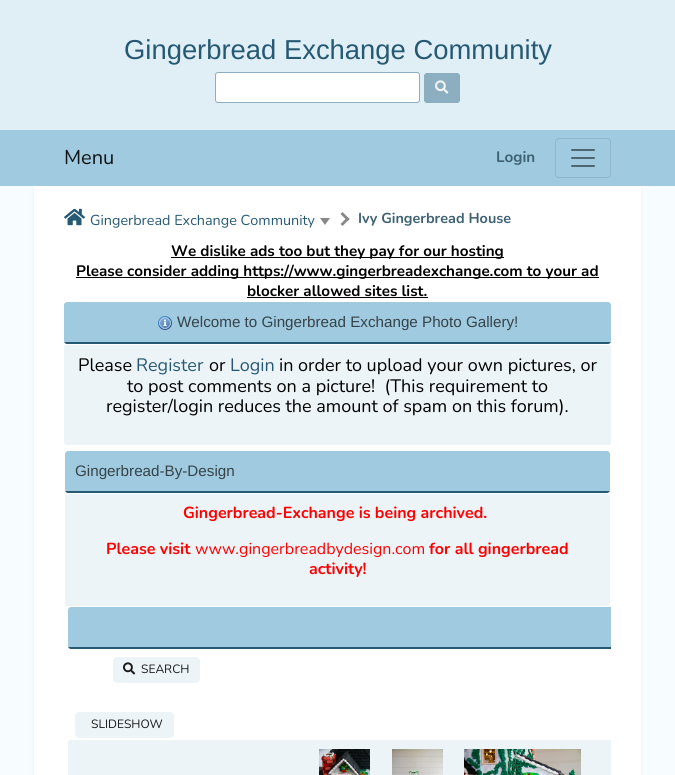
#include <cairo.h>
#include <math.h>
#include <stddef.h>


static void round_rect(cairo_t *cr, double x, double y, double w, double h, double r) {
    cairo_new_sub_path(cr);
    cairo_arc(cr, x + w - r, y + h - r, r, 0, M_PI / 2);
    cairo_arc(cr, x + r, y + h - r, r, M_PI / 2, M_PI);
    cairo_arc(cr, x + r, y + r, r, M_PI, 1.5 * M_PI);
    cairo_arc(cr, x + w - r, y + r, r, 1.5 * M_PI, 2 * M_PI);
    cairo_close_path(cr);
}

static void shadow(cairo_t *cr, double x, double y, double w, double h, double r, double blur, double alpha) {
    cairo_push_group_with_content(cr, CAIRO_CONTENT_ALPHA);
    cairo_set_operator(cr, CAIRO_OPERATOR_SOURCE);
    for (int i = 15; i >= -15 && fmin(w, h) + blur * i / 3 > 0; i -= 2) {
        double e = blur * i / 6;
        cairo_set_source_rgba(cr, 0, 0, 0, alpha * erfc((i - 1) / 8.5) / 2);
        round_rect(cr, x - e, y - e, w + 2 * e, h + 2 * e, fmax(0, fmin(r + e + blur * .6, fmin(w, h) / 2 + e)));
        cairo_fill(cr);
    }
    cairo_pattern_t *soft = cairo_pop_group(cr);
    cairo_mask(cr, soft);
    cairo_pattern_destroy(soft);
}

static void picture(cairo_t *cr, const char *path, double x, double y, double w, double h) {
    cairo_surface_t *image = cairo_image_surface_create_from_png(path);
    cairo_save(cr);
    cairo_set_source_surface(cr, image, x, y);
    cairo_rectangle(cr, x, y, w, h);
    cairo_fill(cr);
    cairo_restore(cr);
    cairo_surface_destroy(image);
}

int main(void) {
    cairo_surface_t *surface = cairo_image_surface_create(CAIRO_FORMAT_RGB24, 675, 775);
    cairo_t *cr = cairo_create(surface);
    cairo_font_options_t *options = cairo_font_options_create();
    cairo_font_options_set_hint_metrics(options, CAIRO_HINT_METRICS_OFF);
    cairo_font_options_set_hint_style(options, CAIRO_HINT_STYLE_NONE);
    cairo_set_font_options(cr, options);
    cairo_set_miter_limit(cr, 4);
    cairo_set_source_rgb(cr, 0.961, 0.988, 1);
    cairo_paint(cr);
    cairo_set_source_rgb(cr, 0.878, 0.933, 0.961);
    cairo_rectangle(cr, 0, 0, 675, 130);
    cairo_fill(cr);
    cairo_select_font_face(cr, "Liberation Sans", CAIRO_FONT_SLANT_NORMAL, CAIRO_FONT_WEIGHT_NORMAL);
    cairo_set_font_size(cr, 27.4);
    cairo_set_source_rgb(cr, 0.149, 0.349, 0.451);
    cairo_move_to(cr, 124, 59);
    cairo_show_text(cr, "Gingerbread Exchange Community");
    cairo_set_source_rgb(cr, 1, 1, 1);
    round_rect(cr, 215.5, 72.5, 204, 30, 2.5);
    cairo_fill_preserve(cr);
    cairo_set_source_rgb(cr, 0.545, 0.686, 0.757);
    cairo_set_line_width(cr, 1);
    cairo_stroke(cr);
    round_rect(cr, 424.5, 73.5, 35, 29, 2.5);
    cairo_fill_preserve(cr);
    cairo_stroke(cr);
    picture(cr, "img1.png", 435, 80, 14, 14);
    cairo_set_source_rgb(cr, 0.624, 0.792, 0.875);
    cairo_rectangle(cr, 0, 130, 675, 56);
    cairo_fill(cr);
    cairo_select_font_face(cr, "Nunito", CAIRO_FONT_SLANT_NORMAL, CAIRO_FONT_WEIGHT_NORMAL);
    cairo_set_font_size(cr, 20);
    cairo_set_source_rgb(cr, 0.063, 0.078, 0.086);
    cairo_move_to(cr, 64, 164);
    cairo_show_text(cr, "Menu");
    cairo_select_font_face(cr, "Nunito", CAIRO_FONT_SLANT_NORMAL, CAIRO_FONT_WEIGHT_BOLD);
    cairo_set_font_size(cr, 15.2);
    cairo_set_source_rgb(cr, 0.243, 0.384, 0.455);
    cairo_move_to(cr, 496, 162);
    cairo_show_text(cr, "Login");
    round_rect(cr, 555.5, 138.5, 55, 39, 3.5);
    cairo_set_source_rgb(cr, 0.561, 0.714, 0.788);
    cairo_stroke(cr);
    picture(cr, "img2.png", 571, 149, 24, 18);
    cairo_set_source_rgb(cr, 0, 0.298, 0.459);
    shadow(cr, 35, 189, 605, 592, 0, 2, 0.1);
    cairo_set_source_rgb(cr, 1, 1, 1);
    cairo_rectangle(cr, 34, 186, 607, 589);
    cairo_fill(cr);
    picture(cr, "img3.png", 64, 208, 21, 18);
    cairo_select_font_face(cr, "Nunito", CAIRO_FONT_SLANT_NORMAL, CAIRO_FONT_WEIGHT_NORMAL);
    cairo_set_font_size(cr, 14.4);
    cairo_set_source_rgb(cr, 0.149, 0.349, 0.451);
    cairo_move_to(cr, 90, 225);
    cairo_show_text(cr, "Gingerbread Exchange Community");
    cairo_set_source_rgb(cr, 0.533, 0.533, 0.533);
    cairo_new_path(cr);
    cairo_move_to(cr, 320, 218);
    cairo_line_to(cr, 330, 218);
    cairo_line_to(cr, 325, 225);
    cairo_close_path(cr);
    cairo_fill(cr);
    cairo_new_path(cr);
    cairo_move_to(cr, 340.5, 214);
    cairo_line_to(cr, 342.5, 212);
    cairo_line_to(cr, 349.5, 219);
    cairo_line_to(cr, 347.5, 221);
    cairo_close_path(cr);
    cairo_fill(cr);
    cairo_new_path(cr);
    cairo_move_to(cr, 340.5, 224);
    cairo_line_to(cr, 347.5, 217);
    cairo_line_to(cr, 349.5, 219);
    cairo_line_to(cr, 342.5, 226);
    cairo_close_path(cr);
    cairo_fill(cr);
    cairo_select_font_face(cr, "Nunito", CAIRO_FONT_SLANT_NORMAL, CAIRO_FONT_WEIGHT_BOLD);
    cairo_set_source_rgb(cr, 0.243, 0.384, 0.455);
    cairo_move_to(cr, 358, 223);
    cairo_show_text(cr, "Ivy Gingerbread House");
    cairo_set_source_rgb(cr, 0, 0, 0);
    cairo_rectangle(cr, 171, 257, 333, 1);
    cairo_fill(cr);
    cairo_set_font_size(cr, 15.2);
    cairo_move_to(cr, 171, 256);
    cairo_show_text(cr, "We dislike ads too but they pay for our hosting");
    cairo_rectangle(cr, 76, 277, 523, 1);
    cairo_fill(cr);
    cairo_move_to(cr, 76, 276);
    cairo_show_text(cr, "Please consider adding https://www.gingerbreadexchange.com to your ad");
    cairo_move_to(cr, 247, 296);
    cairo_show_text(cr, "blocker allowed sites list.");
    cairo_rectangle(cr, 247, 297, 181, 1);
    cairo_fill(cr);
    cairo_save(cr);
    round_rect(cr, 64, 302, 547, 42, 3);
    cairo_clip(cr);
    cairo_set_source_rgb(cr, 0.624, 0.792, 0.875);
    cairo_new_path(cr);
    cairo_move_to(cr, 67, 302);
    cairo_line_to(cr, 608, 302);
    cairo_curve_to(cr, 609.5, 302, 611, 303.5, 611, 305);
    cairo_line_to(cr, 611, 342);
    cairo_line_to(cr, 64, 342);
    cairo_line_to(cr, 64, 305);
    cairo_curve_to(cr, 64, 303.5, 65.5, 302, 67, 302);
    cairo_close_path(cr);
    cairo_fill(cr);
    cairo_set_source_rgb(cr, 0.149, 0.349, 0.451);
    cairo_rectangle(cr, 64, 342, 547, 2);
    cairo_fill(cr);
    cairo_restore(cr);
    picture(cr, "img4.png", 158, 316, 14, 14);
    cairo_select_font_face(cr, "Liberation Sans", CAIRO_FONT_SLANT_NORMAL, CAIRO_FONT_WEIGHT_NORMAL);
    cairo_set_source_rgb(cr, 0.212, 0.263, 0.286);
    cairo_move_to(cr, 177, 327);
    cairo_show_text(cr, "Welcome to Gingerbread Exchange Photo Gallery!");
    cairo_set_source_rgb(cr, 0.929, 0.957, 0.969);
    round_rect(cr, 64, 345, 547, 100, 2);
    cairo_fill(cr);
    cairo_select_font_face(cr, "Nunito", CAIRO_FONT_SLANT_NORMAL, CAIRO_FONT_WEIGHT_NORMAL);
    cairo_set_font_size(cr, 18);
    cairo_set_source_rgb(cr, 0, 0, 0);
    cairo_move_to(cr, 78, 371);
    cairo_show_text(cr, "Please");
    cairo_set_source_rgb(cr, 0.149, 0.349, 0.451);
    cairo_move_to(cr, 136, 371);
    cairo_show_text(cr, "Register");
    cairo_set_source_rgb(cr, 0, 0, 0);
    cairo_move_to(cr, 209, 371);
    cairo_show_text(cr, "or");
    cairo_set_source_rgb(cr, 0.149, 0.349, 0.451);
    cairo_move_to(cr, 230, 371);
    cairo_show_text(cr, "Login");
    cairo_set_source_rgb(cr, 0, 0, 0);
    cairo_move_to(cr, 279, 371);
    cairo_show_text(cr, "in order to upload your own pictures, or");
    cairo_move_to(cr, 127, 392);
    cairo_show_text(cr, "to post comments on a picture!  (This requirement to");
    cairo_move_to(cr, 106, 412);
    cairo_show_text(cr, "register/login reduces the amount of spam on this forum).");
    cairo_save(cr);
    round_rect(cr, 65, 451, 545, 42, 3);
    cairo_clip(cr);
    cairo_set_source_rgb(cr, 0.624, 0.792, 0.875);
    cairo_new_path(cr);
    cairo_move_to(cr, 68, 451);
    cairo_line_to(cr, 607, 451);
    cairo_curve_to(cr, 608.5, 451, 610, 452.5, 610, 454);
    cairo_line_to(cr, 610, 491);
    cairo_line_to(cr, 65, 491);
    cairo_line_to(cr, 65, 454);
    cairo_curve_to(cr, 65, 452.5, 66.5, 451, 68, 451);
    cairo_close_path(cr);
    cairo_fill(cr);
    cairo_set_source_rgb(cr, 0.149, 0.349, 0.451);
    cairo_rectangle(cr, 65, 491, 545, 2);
    cairo_fill(cr);
    cairo_restore(cr);
    cairo_select_font_face(cr, "Liberation Sans", CAIRO_FONT_SLANT_NORMAL, CAIRO_FONT_WEIGHT_NORMAL);
    cairo_set_font_size(cr, 15.2);
    cairo_set_source_rgb(cr, 0.212, 0.263, 0.286);
    cairo_move_to(cr, 75, 476);
    cairo_show_text(cr, "Gingerbread-By-Design");
    cairo_set_source_rgb(cr, 0.929, 0.957, 0.969);
    round_rect(cr, 65, 494, 545, 112, 2);
    cairo_fill(cr);
    cairo_select_font_face(cr, "Nunito", CAIRO_FONT_SLANT_NORMAL, CAIRO_FONT_WEIGHT_BOLD);
    cairo_set_font_size(cr, 16);
    cairo_set_source_rgb(cr, 1, 0, 0);
    cairo_move_to(cr, 183, 518);
    cairo_show_text(cr, "Gingerbread-Exchange is being archived.");
    cairo_move_to(cr, 106, 554);
    cairo_show_text(cr, "Please visit");
    cairo_select_font_face(cr, "Nunito", CAIRO_FONT_SLANT_NORMAL, CAIRO_FONT_WEIGHT_NORMAL);
    cairo_move_to(cr, 195, 554);
    cairo_show_text(cr, "www.gingerbreadbydesign.com");
    cairo_select_font_face(cr, "Nunito", CAIRO_FONT_SLANT_NORMAL, CAIRO_FONT_WEIGHT_BOLD);
    cairo_move_to(cr, 429, 554);
    cairo_show_text(cr, "for all gingerbread");
    cairo_move_to(cr, 309, 574);
    cairo_show_text(cr, "activity!");
    cairo_save(cr);
    round_rect(cr, 68, 607, 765, 42, 3);
    cairo_clip(cr);
    cairo_set_source_rgb(cr, 0.624, 0.792, 0.875);
    cairo_new_path(cr);
    cairo_move_to(cr, 71, 607);
    cairo_line_to(cr, 611, 607);
    cairo_line_to(cr, 611, 647);
    cairo_line_to(cr, 68, 647);
    cairo_line_to(cr, 68, 610);
    cairo_curve_to(cr, 68, 608.5, 69.5, 607, 71, 607);
    cairo_close_path(cr);
    cairo_fill(cr);
    cairo_set_source_rgb(cr, 0.149, 0.349, 0.451);
    cairo_rectangle(cr, 68, 647, 543, 2);
    cairo_fill(cr);
    cairo_restore(cr);
    cairo_set_source_rgb(cr, 0.929, 0.957, 0.969);
    round_rect(cr, 113, 657, 87, 26, 4);
    cairo_fill(cr);
    picture(cr, "img5.png", 123, 662, 13, 13);
    cairo_select_font_face(cr, "Nunito", CAIRO_FONT_SLANT_NORMAL, CAIRO_FONT_WEIGHT_NORMAL);
    cairo_set_font_size(cr, 12);
    cairo_set_source_rgb(cr, 0.102, 0.102, 0.102);
    cairo_move_to(cr, 141, 673);
    cairo_show_text(cr, "SEARCH");
    cairo_set_source_rgb(cr, 0.929, 0.957, 0.969);
    round_rect(cr, 75, 712, 99, 26, 4);
    cairo_fill(cr);
    cairo_set_source_rgb(cr, 0.102, 0.102, 0.102);
    cairo_move_to(cr, 91, 728);
    cairo_show_text(cr, "SLIDESHOW");
    cairo_set_source_rgb(cr, 0.929, 0.957, 0.969);
    cairo_new_path(cr);
    cairo_move_to(cr, 70, 740);
    cairo_line_to(cr, 611, 740);
    cairo_line_to(cr, 611, 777);
    cairo_line_to(cr, 70, 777);
    cairo_curve_to(cr, 69, 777, 68, 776, 68, 775);
    cairo_line_to(cr, 68, 742);
    cairo_curve_to(cr, 68, 741, 69, 740, 70, 740);
    cairo_close_path(cr);
    cairo_fill(cr);
    picture(cr, "img6.png", 319, 749, 51, 26);
    picture(cr, "img7.png", 392, 749, 51, 26);
    picture(cr, "img8.png", 464, 749, 117, 26);
    cairo_surface_write_to_png(surface, "page.png");
    cairo_font_options_destroy(options);
    cairo_destroy(cr);
    cairo_surface_destroy(surface);
    return 0;
}
